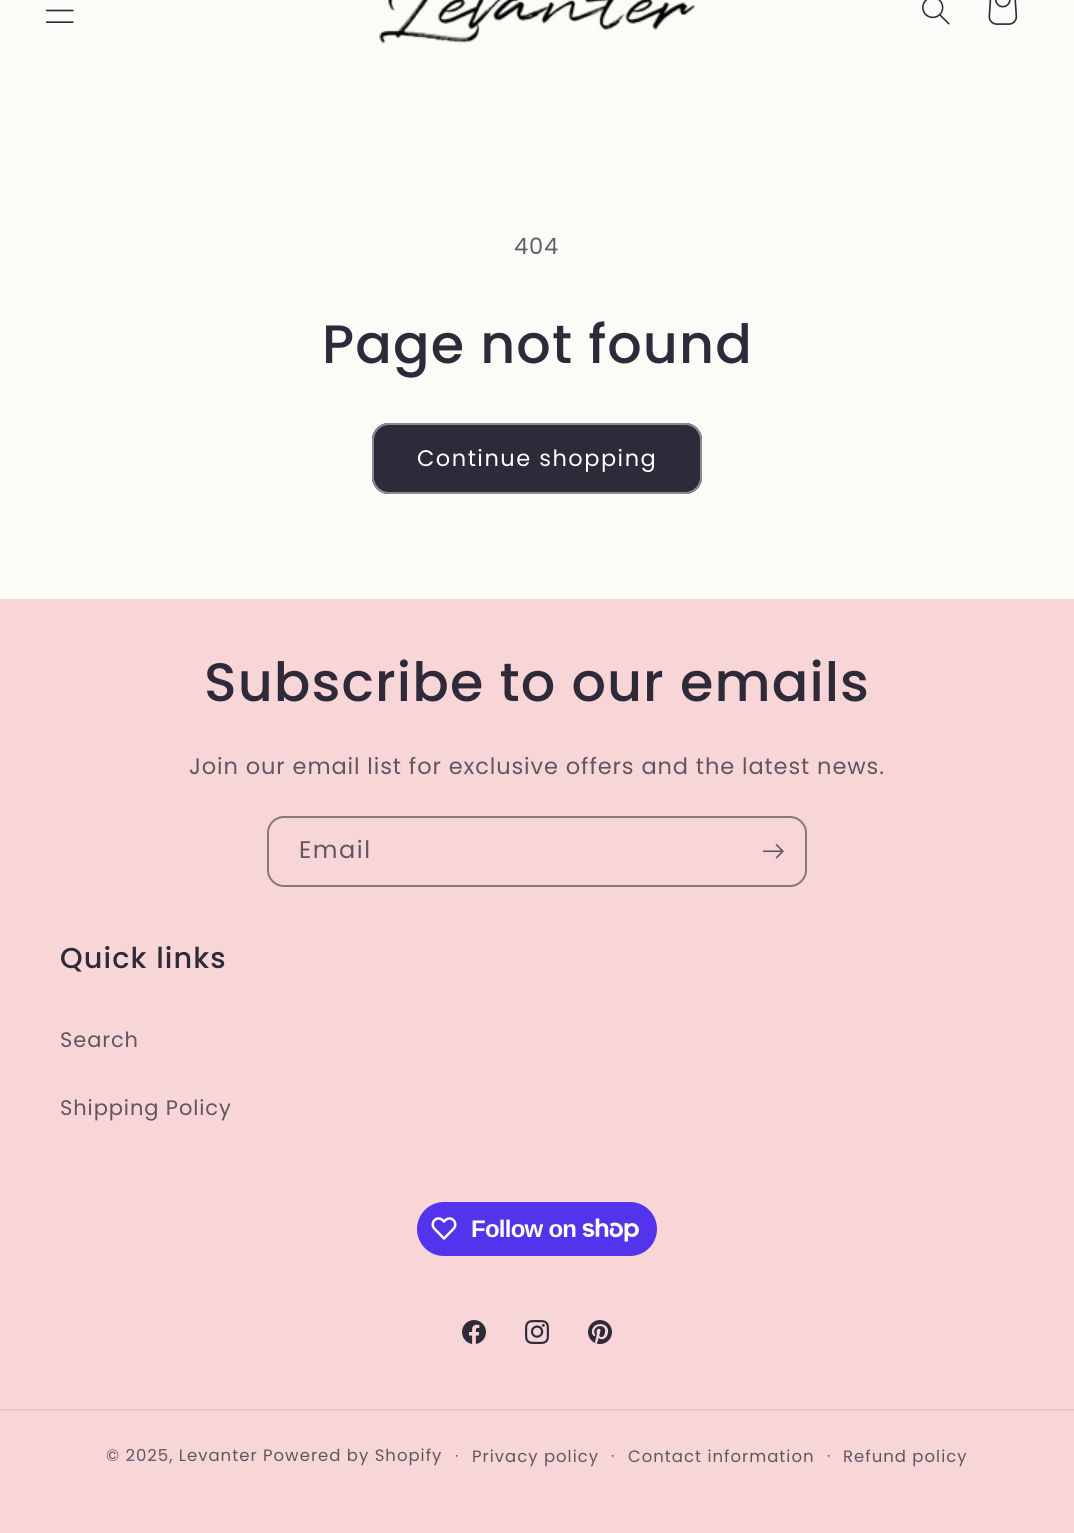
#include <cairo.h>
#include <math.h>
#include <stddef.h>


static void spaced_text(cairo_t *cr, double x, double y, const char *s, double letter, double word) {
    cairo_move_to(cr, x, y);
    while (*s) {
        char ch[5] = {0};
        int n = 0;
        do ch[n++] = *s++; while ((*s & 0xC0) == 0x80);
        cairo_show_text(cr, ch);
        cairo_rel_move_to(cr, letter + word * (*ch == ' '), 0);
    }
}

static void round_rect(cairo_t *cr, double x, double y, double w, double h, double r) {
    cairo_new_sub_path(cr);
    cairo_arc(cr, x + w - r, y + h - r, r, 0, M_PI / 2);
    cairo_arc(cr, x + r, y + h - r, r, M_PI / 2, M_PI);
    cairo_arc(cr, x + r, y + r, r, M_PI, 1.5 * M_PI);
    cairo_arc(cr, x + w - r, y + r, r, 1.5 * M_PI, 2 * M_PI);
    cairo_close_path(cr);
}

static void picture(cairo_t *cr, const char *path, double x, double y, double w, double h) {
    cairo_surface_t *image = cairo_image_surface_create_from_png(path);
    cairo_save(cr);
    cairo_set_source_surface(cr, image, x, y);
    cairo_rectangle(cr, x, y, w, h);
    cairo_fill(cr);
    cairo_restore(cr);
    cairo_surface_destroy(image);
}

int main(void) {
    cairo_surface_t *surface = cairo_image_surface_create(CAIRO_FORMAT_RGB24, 1074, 1533);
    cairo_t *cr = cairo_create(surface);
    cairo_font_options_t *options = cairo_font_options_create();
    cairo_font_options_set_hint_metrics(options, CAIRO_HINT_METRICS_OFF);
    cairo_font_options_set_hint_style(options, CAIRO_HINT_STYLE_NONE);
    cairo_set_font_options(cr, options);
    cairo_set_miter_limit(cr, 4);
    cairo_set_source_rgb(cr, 0.992, 0.984, 0.969);
    cairo_paint(cr);
    picture(cr, "img1.png", 45, 9, 29, 14);
    picture(cr, "img2.png", 379, 0, 316, 44);
    picture(cr, "img3.png", 922, 0, 28, 25);
    picture(cr, "img4.png", 988, 0, 30, 25);
    cairo_select_font_face(cr, "Poppins", CAIRO_FONT_SLANT_NORMAL, CAIRO_FONT_WEIGHT_NORMAL);
    cairo_set_font_size(cr, 22.5);
    cairo_set_source_rgb(cr, 0.384, 0.369, 0.412);
    spaced_text(cr, 514, 254, "404", 0.9, 0);
    cairo_select_font_face(cr, "Poppins Medium", CAIRO_FONT_SLANT_NORMAL, CAIRO_FONT_WEIGHT_NORMAL);
    cairo_set_font_size(cr, 54);
    cairo_set_source_rgb(cr, 0.18, 0.165, 0.224);
    spaced_text(cr, 322, 363, "Page not found", 1.1, 0);
    round_rect(cr, 372, 423, 330, 71, 17);
    cairo_fill(cr);
    round_rect(cr, 373, 424, 328, 69, 16);
    cairo_stroke(cr);
    round_rect(cr, 373, 424, 328, 69, 16);
    cairo_set_source_rgba(cr, 1, 1, 1, 0.45);
    cairo_stroke(cr);
    cairo_select_font_face(cr, "Poppins", CAIRO_FONT_SLANT_NORMAL, CAIRO_FONT_WEIGHT_NORMAL);
    cairo_set_font_size(cr, 22.5);
    cairo_set_source_rgb(cr, 1, 1, 1);
    spaced_text(cr, 417, 466, "Continue shopping", 1.5, 0);
    cairo_set_source_rgb(cr, 0.969, 0.839, 0.843);
    cairo_rectangle(cr, 0, 599, 1074, 934);
    cairo_fill(cr);
    cairo_select_font_face(cr, "Poppins Medium", CAIRO_FONT_SLANT_NORMAL, CAIRO_FONT_WEIGHT_NORMAL);
    cairo_set_font_size(cr, 54);
    cairo_set_source_rgb(cr, 0.18, 0.165, 0.224);
    spaced_text(cr, 204, 701, "Subscribe to our emails", 1.1, 0);
    cairo_select_font_face(cr, "Poppins", CAIRO_FONT_SLANT_NORMAL, CAIRO_FONT_WEIGHT_NORMAL);
    cairo_set_font_size(cr, 22.5);
    cairo_set_source_rgb(cr, 0.376, 0.333, 0.38);
    spaced_text(cr, 189, 774, "Join our email list for exclusive offers and the latest news.", 0.9, 0);
    round_rect(cr, 268, 817, 538, 69, 16);
    cairo_set_source_rgb(cr, 0.533, 0.467, 0.502);
    cairo_stroke(cr);
    cairo_set_font_size(cr, 24);
    cairo_set_source_rgb(cr, 0.376, 0.333, 0.38);
    spaced_text(cr, 299, 858, "Email", 1.5, 0);
    picture(cr, "img5.png", 762, 844, 22, 15);
    cairo_select_font_face(cr, "Poppins Medium", CAIRO_FONT_SLANT_NORMAL, CAIRO_FONT_WEIGHT_NORMAL);
    cairo_set_font_size(cr, 28.75);
    cairo_set_source_rgb(cr, 0.18, 0.165, 0.224);
    spaced_text(cr, 60, 968, "Quick links", 1.1, 0);
    cairo_select_font_face(cr, "Poppins", CAIRO_FONT_SLANT_NORMAL, CAIRO_FONT_WEIGHT_NORMAL);
    cairo_set_font_size(cr, 21);
    cairo_set_source_rgb(cr, 0.376, 0.333, 0.38);
    spaced_text(cr, 60, 1047, "Search", 0.9, 0);
    spaced_text(cr, 60, 1115, "Shipping Policy", 0.9, 0);
    cairo_set_source_rgb(cr, 0.329, 0.2, 0.922);
    round_rect(cr, 417, 1202, 240, 54, 27);
    cairo_fill(cr);
    picture(cr, "img6.png", 431, 1217, 26, 23);
    cairo_select_font_face(cr, "Liberation Sans", CAIRO_FONT_SLANT_NORMAL, CAIRO_FONT_WEIGHT_BOLD);
    cairo_set_font_size(cr, 24);
    cairo_set_source_rgb(cr, 1, 1, 1);
    spaced_text(cr, 471, 1237, "Follow on", -0.75, 0);
    picture(cr, "img7.png", 582, 1218, 57, 24);
    picture(cr, "img8.png", 462, 1320, 24, 24);
    picture(cr, "img9.png", 525, 1320, 24, 24);
    picture(cr, "img10.png", 588, 1320, 24, 25);
    cairo_set_source_rgb(cr, 0.906, 0.784, 0.792);
    cairo_rectangle(cr, 0, 1409, 1074, 2);
    cairo_fill(cr);
    cairo_select_font_face(cr, "Poppins", CAIRO_FONT_SLANT_NORMAL, CAIRO_FONT_WEIGHT_NORMAL);
    cairo_set_font_size(cr, 16.5);
    cairo_set_source_rgb(cr, 0.376, 0.333, 0.38);
    spaced_text(cr, 106, 1461, "© 2025, Levanter", 1, 0);
    spaced_text(cr, 263, 1461, "Powered by Shopify", 1, 0);
    cairo_set_font_size(cr, 15);
    spaced_text(cr, 455, 1461, "·", 1, 0);
    cairo_set_font_size(cr, 16.5);
    spaced_text(cr, 472, 1462, "Privacy policy", 1, 0);
    cairo_set_font_size(cr, 15);
    spaced_text(cr, 611, 1461, "·", 1, 0);
    cairo_set_font_size(cr, 16.5);
    spaced_text(cr, 628, 1462, "Contact information", 1, 0);
    cairo_set_font_size(cr, 15);
    spaced_text(cr, 827, 1461, "·", 1, 0);
    cairo_set_font_size(cr, 16.5);
    spaced_text(cr, 843, 1462, "Refund policy", 1, 0);
    cairo_surface_write_to_png(surface, "page.png");
    cairo_font_options_destroy(options);
    cairo_destroy(cr);
    cairo_surface_destroy(surface);
    return 0;
}
